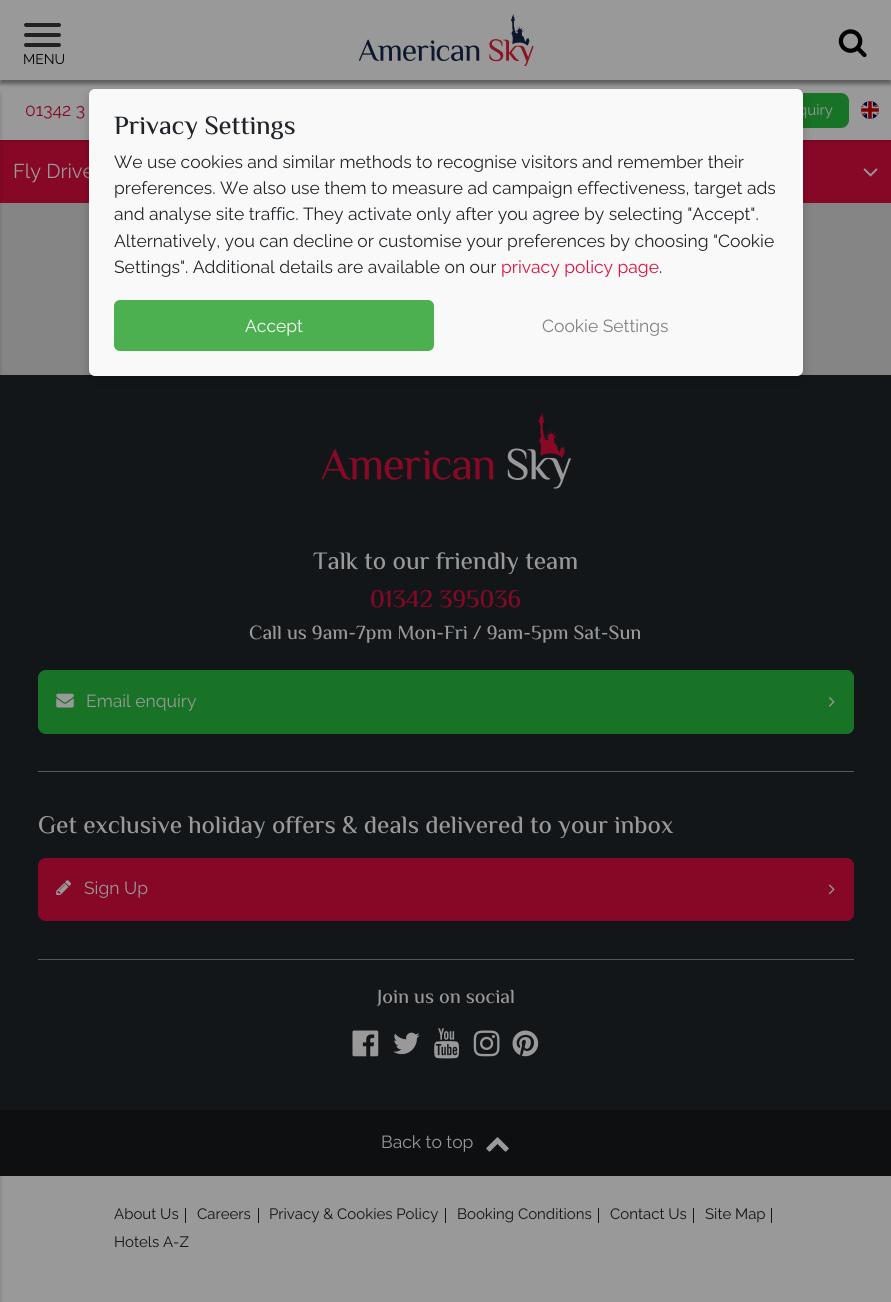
#include <cairo.h>
#include <math.h>
#include <stddef.h>


static void round_rect(cairo_t *cr, double x, double y, double w, double h, double r) {
    cairo_new_sub_path(cr);
    cairo_arc(cr, x + w - r, y + h - r, r, 0, M_PI / 2);
    cairo_arc(cr, x + r, y + h - r, r, M_PI / 2, M_PI);
    cairo_arc(cr, x + r, y + r, r, M_PI, 1.5 * M_PI);
    cairo_arc(cr, x + w - r, y + r, r, 1.5 * M_PI, 2 * M_PI);
    cairo_close_path(cr);
}

static void shadow(cairo_t *cr, double x, double y, double w, double h, double r, double blur, double alpha) {
    cairo_push_group_with_content(cr, CAIRO_CONTENT_ALPHA);
    cairo_set_operator(cr, CAIRO_OPERATOR_SOURCE);
    for (int i = 15; i >= -15 && fmin(w, h) + blur * i / 3 > 0; i -= 2) {
        double e = blur * i / 6;
        cairo_set_source_rgba(cr, 0, 0, 0, alpha * erfc((i - 1) / 8.5) / 2);
        round_rect(cr, x - e, y - e, w + 2 * e, h + 2 * e, fmax(0, fmin(r + e + blur * .6, fmin(w, h) / 2 + e)));
        cairo_fill(cr);
    }
    cairo_pattern_t *soft = cairo_pop_group(cr);
    cairo_mask(cr, soft);
    cairo_pattern_destroy(soft);
}

static void picture(cairo_t *cr, const char *path, double x, double y, double w, double h) {
    cairo_surface_t *image = cairo_image_surface_create_from_png(path);
    cairo_save(cr);
    cairo_set_source_surface(cr, image, x, y);
    cairo_rectangle(cr, x, y, w, h);
    cairo_fill(cr);
    cairo_restore(cr);
    cairo_surface_destroy(image);
}

int main(void) {
    cairo_surface_t *surface = cairo_image_surface_create(CAIRO_FORMAT_RGB24, 891, 1302);
    cairo_t *cr = cairo_create(surface);
    cairo_font_options_t *options = cairo_font_options_create();
    cairo_font_options_set_hint_metrics(options, CAIRO_HINT_METRICS_OFF);
    cairo_font_options_set_hint_style(options, CAIRO_HINT_STYLE_NONE);
    cairo_set_font_options(cr, options);
    cairo_set_miter_limit(cr, 4);
    cairo_set_source_rgb(cr, 0.6, 0.6, 0.6);
    cairo_paint(cr);
    cairo_set_source_rgb(cr, 0.529, 0.035, 0.149);
    cairo_rectangle(cr, 0, 140, 891, 63);
    cairo_fill(cr);
    cairo_set_source_rgb(cr, 0, 0, 0);
    shadow(cr, 0, 81, 891, 60, 0, 1, 0.2);
    cairo_set_source_rgb(cr, 0.6, 0.6, 0.6);
    cairo_rectangle(cr, 0, 80, 891, 60);
    cairo_fill(cr);
    cairo_set_source_rgb(cr, 0, 0, 0);
    shadow(cr, 0, 4, 891, 80, 0, 2, 0.4);
    cairo_set_source_rgb(cr, 0.6, 0.6, 0.6);
    cairo_rectangle(cr, 0, 1, 891, 79);
    cairo_fill(cr);
    picture(cr, "img1.png", 359, 14, 175, 52);
    picture(cr, "img2.png", 838, 29, 29, 29);
    cairo_set_source_rgb(cr, 0.133, 0.133, 0.133);
    round_rect(cr, 24, 23, 37, 4, 2);
    cairo_fill(cr);
    round_rect(cr, 24, 33, 37, 4, 2);
    cairo_fill(cr);
    round_rect(cr, 24, 43, 37, 4, 2);
    cairo_fill(cr);
    cairo_select_font_face(cr, "Raleway", CAIRO_FONT_SLANT_NORMAL, CAIRO_FONT_WEIGHT_NORMAL);
    cairo_set_font_size(cr, 14);
    cairo_set_source_rgb(cr, 0, 0, 0);
    cairo_move_to(cr, 23, 64);
    cairo_show_text(cr, "MENU");
    cairo_set_source_rgb(cr, 0.522, 0.522, 0.522);
    cairo_rectangle(cr, 0, 203, 891, 172);
    cairo_fill(cr);
    cairo_set_source_rgb(cr, 0.078, 0.086, 0.098);
    cairo_rectangle(cr, 0, 375, 891, 735);
    cairo_fill(cr);
    cairo_set_source_rgb(cr, 0.051, 0.059, 0.063);
    cairo_rectangle(cr, 0, 1110, 891, 66);
    cairo_fill(cr);
    cairo_set_source_rgb(cr, 0, 0, 0);
    shadow(cr, -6, 93, 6, 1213, 0, 2, 0.2);
    cairo_set_font_size(cr, 17.5);
    cairo_set_source_rgb(cr, 0.529, 0.035, 0.149);
    cairo_move_to(cr, 25, 116);
    cairo_show_text(cr, "01342 3");
    cairo_set_source_rgb(cr, 0.094, 0.451, 0.149);
    round_rect(cr, 721, 93, 128, 35, 8);
    cairo_fill(cr);
    cairo_set_font_size(cr, 15);
    cairo_set_source_rgb(cr, 0.6, 0.6, 0.6);
    cairo_move_to(cr, 798, 115);
    cairo_show_text(cr, "quiry");
    picture(cr, "img3.png", 861, 101, 18, 18);
    cairo_set_font_size(cr, 20);
    cairo_move_to(cr, 13, 178);
    cairo_show_text(cr, "Fly Drive");
    picture(cr, "img4.png", 863, 168, 15, 9);
    picture(cr, "img5.png", 321, 413, 250, 76);
    cairo_select_font_face(cr, "El Messiri Medium", CAIRO_FONT_SLANT_NORMAL, CAIRO_FONT_WEIGHT_NORMAL);
    cairo_set_font_size(cr, 25);
    cairo_move_to(cr, 313, 569);
    cairo_show_text(cr, "Talk to our friendly team");
    cairo_set_source_rgb(cr, 0.529, 0.035, 0.149);
    cairo_move_to(cr, 370, 607);
    cairo_show_text(cr, "01342 395036");
    cairo_set_font_size(cr, 20);
    cairo_set_source_rgb(cr, 0.6, 0.6, 0.6);
    cairo_move_to(cr, 249, 639);
    cairo_show_text(cr, "Call us 9am-7pm Mon-Fri / 9am-5pm Sat-Sun");
    cairo_set_source_rgb(cr, 0.094, 0.451, 0.149);
    round_rect(cr, 38, 670, 816, 64, 8);
    cairo_fill(cr);
    picture(cr, "img6.png", 56, 693, 18, 15);
    cairo_select_font_face(cr, "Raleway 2", CAIRO_FONT_SLANT_NORMAL, CAIRO_FONT_WEIGHT_NORMAL);
    cairo_set_font_size(cr, 17.5);
    cairo_set_source_rgb(cr, 0.6, 0.6, 0.6);
    cairo_move_to(cr, 86, 707);
    cairo_show_text(cr, "Email enquiry");
    cairo_set_source_rgb(cr, 0.094, 0.451, 0.149);
    cairo_new_path(cr);
    cairo_move_to(cr, 810, 670);
    cairo_line_to(cr, 846, 670);
    cairo_curve_to(cr, 850.5, 670, 854, 673.5, 854, 678);
    cairo_line_to(cr, 854, 726);
    cairo_curve_to(cr, 854, 730.5, 850.5, 734, 846, 734);
    cairo_line_to(cr, 810, 734);
    cairo_close_path(cr);
    cairo_fill(cr);
    picture(cr, "img7.png", 828, 697, 7, 10);
    cairo_set_source_rgb(cr, 0.345, 0.345, 0.345);
    cairo_rectangle(cr, 38, 771, 816, 1);
    cairo_fill(cr);
    cairo_rectangle(cr, 38, 959, 816, 1);
    cairo_fill(cr);
    cairo_select_font_face(cr, "El Messiri Medium", CAIRO_FONT_SLANT_NORMAL, CAIRO_FONT_WEIGHT_NORMAL);
    cairo_set_font_size(cr, 25);
    cairo_set_source_rgb(cr, 0.6, 0.6, 0.6);
    cairo_move_to(cr, 38, 833);
    cairo_show_text(cr, "Get exclusive holiday offers & deals delivered to your inbox");
    cairo_set_source_rgb(cr, 0.529, 0.035, 0.149);
    round_rect(cr, 38, 858, 816, 63, 8);
    cairo_fill(cr);
    picture(cr, "img8.png", 56, 880, 15, 15);
    cairo_select_font_face(cr, "Raleway 2", CAIRO_FONT_SLANT_NORMAL, CAIRO_FONT_WEIGHT_NORMAL);
    cairo_set_font_size(cr, 17.5);
    cairo_set_source_rgb(cr, 0.6, 0.6, 0.6);
    cairo_move_to(cr, 84, 894);
    cairo_show_text(cr, "Sign Up");
    cairo_set_source_rgb(cr, 0.529, 0.035, 0.149);
    cairo_new_path(cr);
    cairo_move_to(cr, 810, 858);
    cairo_line_to(cr, 846, 858);
    cairo_curve_to(cr, 850.5, 858, 854, 861.5, 854, 866);
    cairo_line_to(cr, 854, 913);
    cairo_curve_to(cr, 854, 917.5, 850.5, 921, 846, 921);
    cairo_line_to(cr, 810, 921);
    cairo_close_path(cr);
    cairo_fill(cr);
    picture(cr, "img9.png", 828, 884, 7, 11);
    cairo_select_font_face(cr, "El Messiri Medium", CAIRO_FONT_SLANT_NORMAL, CAIRO_FONT_WEIGHT_NORMAL);
    cairo_set_font_size(cr, 20);
    cairo_set_source_rgb(cr, 0.6, 0.6, 0.6);
    cairo_move_to(cr, 377, 1003);
    cairo_show_text(cr, "Join us on social");
    picture(cr, "img10.png", 352, 1030, 27, 27);
    picture(cr, "img11.png", 393, 1032, 27, 23);
    picture(cr, "img12.png", 434, 1028, 25, 31);
    picture(cr, "img13.png", 473, 1030, 27, 27);
    picture(cr, "img14.png", 512, 1030, 27, 27);
    cairo_select_font_face(cr, "Raleway", CAIRO_FONT_SLANT_NORMAL, CAIRO_FONT_WEIGHT_NORMAL);
    cairo_set_font_size(cr, 17.5);
    cairo_move_to(cr, 381, 1148);
    cairo_show_text(cr, "Back to top");
    picture(cr, "img15.png", 486, 1137, 23, 15);
    cairo_set_source_rgb(cr, 0.078, 0.086, 0.098);
    cairo_rectangle(cr, 185, 1208, 1, 15);
    cairo_fill(cr);
    cairo_set_font_size(cr, 15);
    cairo_set_source_rgb(cr, 0.075, 0.075, 0.075);
    cairo_move_to(cr, 114, 1219);
    cairo_show_text(cr, "About Us");
    cairo_set_source_rgb(cr, 0.078, 0.086, 0.098);
    cairo_rectangle(cr, 258, 1208, 1, 15);
    cairo_fill(cr);
    cairo_set_source_rgb(cr, 0.075, 0.075, 0.075);
    cairo_move_to(cr, 197, 1219);
    cairo_show_text(cr, "Careers");
    cairo_set_source_rgb(cr, 0.078, 0.086, 0.098);
    cairo_rectangle(cr, 445, 1208, 1, 15);
    cairo_fill(cr);
    cairo_set_source_rgb(cr, 0.075, 0.075, 0.075);
    cairo_move_to(cr, 269, 1219);
    cairo_show_text(cr, "Privacy & Cookies Policy");
    cairo_set_source_rgb(cr, 0.078, 0.086, 0.098);
    cairo_rectangle(cr, 598, 1208, 1, 15);
    cairo_fill(cr);
    cairo_set_source_rgb(cr, 0.075, 0.075, 0.075);
    cairo_move_to(cr, 457, 1219);
    cairo_show_text(cr, "Booking Conditions");
    cairo_set_source_rgb(cr, 0.078, 0.086, 0.098);
    cairo_rectangle(cr, 693, 1208, 1, 15);
    cairo_fill(cr);
    cairo_set_source_rgb(cr, 0.075, 0.075, 0.075);
    cairo_move_to(cr, 610, 1219);
    cairo_show_text(cr, "Contact Us");
    cairo_set_source_rgb(cr, 0.078, 0.086, 0.098);
    cairo_rectangle(cr, 771, 1208, 1, 15);
    cairo_fill(cr);
    cairo_set_source_rgb(cr, 0.075, 0.075, 0.075);
    cairo_move_to(cr, 705, 1219);
    cairo_show_text(cr, "Site Map");
    cairo_move_to(cr, 114, 1247);
    cairo_show_text(cr, "Hotels A-Z");
    cairo_set_source_rgb(cr, 0, 0, 0);
    shadow(cr, 89, 94, 714, 287, 6, 5, 0.2);
    cairo_set_source_rgb(cr, 0.976, 0.976, 0.976);
    round_rect(cr, 89, 89, 714, 287, 6);
    cairo_fill(cr);
    cairo_select_font_face(cr, "El Messiri Medium", CAIRO_FONT_SLANT_NORMAL, CAIRO_FONT_WEIGHT_NORMAL);
    cairo_set_font_size(cr, 26.25);
    cairo_set_source_rgb(cr, 0.129, 0.145, 0.161);
    cairo_move_to(cr, 114, 134);
    cairo_show_text(cr, "Privacy Settings");
    cairo_select_font_face(cr, "Raleway", CAIRO_FONT_SLANT_NORMAL, CAIRO_FONT_WEIGHT_NORMAL);
    cairo_set_font_size(cr, 17.5);
    cairo_move_to(cr, 114, 168);
    cairo_show_text(cr, "We use cookies and similar methods to recognise visitors and remember their");
    cairo_move_to(cr, 114, 194);
    cairo_show_text(cr, "preferences. We also use them to measure ad campaign effectiveness, target ads");
    cairo_move_to(cr, 114, 220);
    cairo_show_text(cr, "and analyse site traffic. They activate only after you agree by selecting \"Accept\".");
    cairo_move_to(cr, 114, 247);
    cairo_show_text(cr, "Alternatively, you can decline or customise your preferences by choosing \"Cookie");
    cairo_move_to(cr, 114, 273);
    cairo_show_text(cr, "Settings\". Additional details are available on our");
    cairo_set_source_rgb(cr, 0.882, 0.059, 0.247);
    cairo_move_to(cr, 501, 273);
    cairo_show_text(cr, "privacy policy page");
    cairo_set_source_rgb(cr, 0.129, 0.145, 0.161);
    cairo_move_to(cr, 659, 273);
    cairo_show_text(cr, ".");
    cairo_set_source_rgb(cr, 0.298, 0.686, 0.314);
    round_rect(cr, 114, 300, 320, 51, 6);
    cairo_fill(cr);
    cairo_set_source_rgb(cr, 1, 1, 1);
    cairo_move_to(cr, 245, 332);
    cairo_show_text(cr, "Accept");
    cairo_set_source_rgb(cr, 0.502, 0.502, 0.502);
    cairo_move_to(cr, 542, 332);
    cairo_show_text(cr, "Cookie Settings");
    cairo_surface_write_to_png(surface, "page.png");
    cairo_font_options_destroy(options);
    cairo_destroy(cr);
    cairo_surface_destroy(surface);
    return 0;
}
